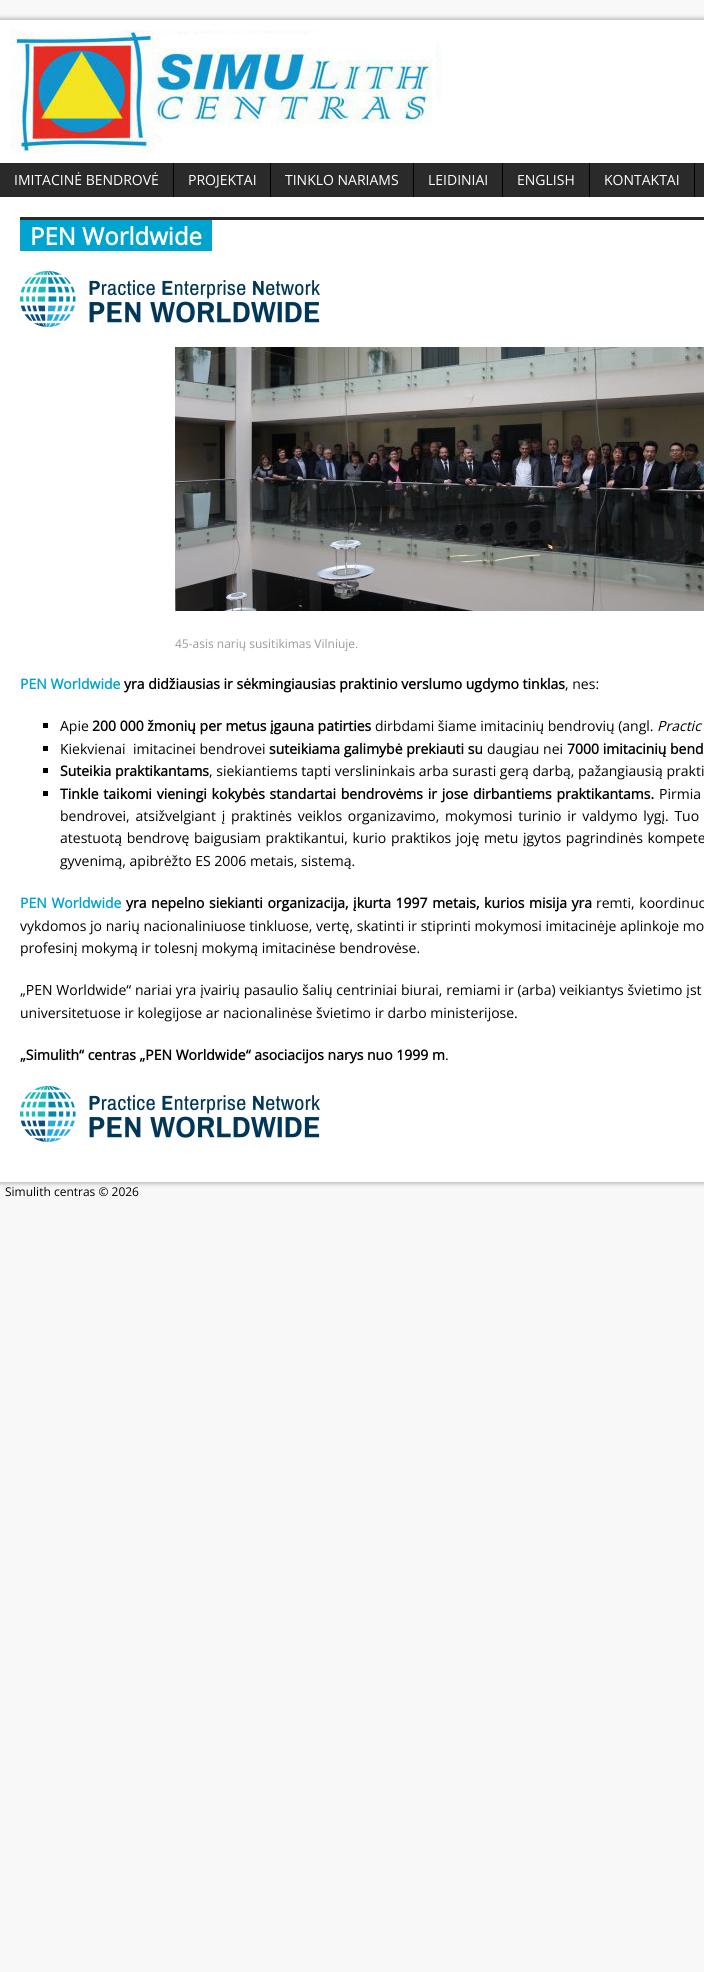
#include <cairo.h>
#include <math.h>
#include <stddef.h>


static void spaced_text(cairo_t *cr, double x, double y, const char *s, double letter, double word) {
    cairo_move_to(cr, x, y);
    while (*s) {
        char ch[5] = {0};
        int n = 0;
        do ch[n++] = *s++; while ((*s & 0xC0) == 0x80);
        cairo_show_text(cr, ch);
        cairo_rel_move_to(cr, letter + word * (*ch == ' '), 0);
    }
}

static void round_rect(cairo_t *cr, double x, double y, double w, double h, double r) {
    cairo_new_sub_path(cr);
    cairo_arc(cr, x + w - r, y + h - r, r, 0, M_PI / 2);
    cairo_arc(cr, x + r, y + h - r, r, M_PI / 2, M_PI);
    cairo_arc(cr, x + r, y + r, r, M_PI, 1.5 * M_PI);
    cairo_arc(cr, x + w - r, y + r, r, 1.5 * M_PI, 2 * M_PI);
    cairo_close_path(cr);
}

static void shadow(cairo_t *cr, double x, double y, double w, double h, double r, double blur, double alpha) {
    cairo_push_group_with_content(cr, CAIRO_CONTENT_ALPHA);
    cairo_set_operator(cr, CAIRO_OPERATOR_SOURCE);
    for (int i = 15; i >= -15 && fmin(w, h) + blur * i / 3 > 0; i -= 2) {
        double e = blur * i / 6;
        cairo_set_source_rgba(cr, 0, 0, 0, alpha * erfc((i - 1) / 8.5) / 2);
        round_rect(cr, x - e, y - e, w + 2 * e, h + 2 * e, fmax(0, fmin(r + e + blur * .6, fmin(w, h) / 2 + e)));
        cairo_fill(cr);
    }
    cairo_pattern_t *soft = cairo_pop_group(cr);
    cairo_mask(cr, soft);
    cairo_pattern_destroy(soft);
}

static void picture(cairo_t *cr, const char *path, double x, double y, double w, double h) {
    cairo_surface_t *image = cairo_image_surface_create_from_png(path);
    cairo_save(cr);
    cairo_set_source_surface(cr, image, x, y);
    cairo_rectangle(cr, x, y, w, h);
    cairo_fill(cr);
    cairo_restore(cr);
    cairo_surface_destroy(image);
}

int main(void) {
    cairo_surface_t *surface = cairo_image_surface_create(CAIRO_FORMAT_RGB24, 704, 1972);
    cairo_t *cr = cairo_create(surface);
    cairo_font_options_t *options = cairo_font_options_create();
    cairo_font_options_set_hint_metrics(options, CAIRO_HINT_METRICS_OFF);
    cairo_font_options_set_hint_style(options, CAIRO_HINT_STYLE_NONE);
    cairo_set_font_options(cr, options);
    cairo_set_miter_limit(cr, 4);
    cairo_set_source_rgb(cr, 0.969, 0.969, 0.969);
    cairo_paint(cr);
    cairo_set_source_rgb(cr, 0.659, 0.659, 0.659);
    shadow(cr, -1, 19, 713, 1164, 0, 2.5, 1);
    cairo_set_source_rgb(cr, 1, 1, 1);
    cairo_rectangle(cr, 0, 20, 704, 143);
    cairo_fill(cr);
    picture(cr, "img1.png", 10, 30, 432, 123);
    cairo_set_source_rgb(cr, 0.165, 0.165, 0.165);
    cairo_rectangle(cr, 0, 163, 704, 34);
    cairo_fill(cr);
    cairo_select_font_face(cr, "Open Sans", CAIRO_FONT_SLANT_NORMAL, CAIRO_FONT_WEIGHT_NORMAL);
    cairo_set_font_size(cr, 14);
    cairo_set_source_rgb(cr, 1, 1, 1);
    cairo_move_to(cr, 14, 185);
    cairo_show_text(cr, "IMITACINĖ BENDROVĖ");
    cairo_set_source_rgb(cr, 0, 0, 0);
    cairo_rectangle(cr, 173, 163, 1, 34);
    cairo_fill(cr);
    cairo_set_source_rgb(cr, 1, 1, 1);
    cairo_move_to(cr, 188, 185);
    cairo_show_text(cr, "PROJEKTAI");
    cairo_set_source_rgb(cr, 0, 0, 0);
    cairo_rectangle(cr, 270, 163, 1, 34);
    cairo_fill(cr);
    cairo_set_source_rgb(cr, 1, 1, 1);
    cairo_move_to(cr, 285, 185);
    cairo_show_text(cr, "TINKLO NARIAMS");
    cairo_set_source_rgb(cr, 0, 0, 0);
    cairo_rectangle(cr, 413, 163, 1, 34);
    cairo_fill(cr);
    cairo_set_source_rgb(cr, 1, 1, 1);
    cairo_move_to(cr, 428, 185);
    cairo_show_text(cr, "LEIDINIAI");
    cairo_set_source_rgb(cr, 0, 0, 0);
    cairo_rectangle(cr, 502, 163, 1, 34);
    cairo_fill(cr);
    cairo_set_source_rgb(cr, 1, 1, 1);
    cairo_move_to(cr, 517, 185);
    cairo_show_text(cr, "ENGLISH");
    cairo_set_source_rgb(cr, 0, 0, 0);
    cairo_rectangle(cr, 589, 163, 1, 34);
    cairo_fill(cr);
    cairo_set_source_rgb(cr, 1, 1, 1);
    cairo_move_to(cr, 604, 185);
    cairo_show_text(cr, "KONTAKTAI");
    cairo_set_source_rgb(cr, 0, 0, 0);
    cairo_rectangle(cr, 694, 163, 1, 34);
    cairo_fill(cr);
    cairo_set_source_rgb(cr, 1, 1, 1);
    cairo_rectangle(cr, 0, 197, 704, 985);
    cairo_fill(cr);
    cairo_set_source_rgb(cr, 0.165, 0.165, 0.165);
    cairo_rectangle(cr, 20, 217, 684, 3);
    cairo_fill(cr);
    cairo_set_source_rgb(cr, 0, 0.643, 0.812);
    cairo_rectangle(cr, 20, 220, 192, 31);
    cairo_fill(cr);
    cairo_select_font_face(cr, "Open Sans", CAIRO_FONT_SLANT_NORMAL, CAIRO_FONT_WEIGHT_BOLD);
    cairo_set_font_size(cr, 24);
    cairo_set_source_rgb(cr, 1, 1, 1);
    cairo_move_to(cr, 30, 245);
    cairo_show_text(cr, "PEN Worldwide");
    picture(cr, "img2.png", 20, 271, 300, 56);
    picture(cr, "img3.png", 175, 347, 529, 264);
    cairo_select_font_face(cr, "Open Sans", CAIRO_FONT_SLANT_NORMAL, CAIRO_FONT_WEIGHT_NORMAL);
    cairo_set_font_size(cr, 12);
    cairo_set_source_rgb(cr, 0.604, 0.608, 0.592);
    cairo_move_to(cr, 175, 648);
    cairo_show_text(cr, "45-asis narių susitikimas Vilniuje.");
    cairo_select_font_face(cr, "Open Sans", CAIRO_FONT_SLANT_NORMAL, CAIRO_FONT_WEIGHT_BOLD);
    cairo_set_font_size(cr, 14);
    cairo_set_source_rgb(cr, 0, 0.643, 0.812);
    cairo_move_to(cr, 20, 689);
    cairo_show_text(cr, "PEN Worldwide");
    cairo_set_source_rgb(cr, 0, 0, 0);
    cairo_move_to(cr, 124, 689);
    cairo_show_text(cr, "yra didžiausias ir sėkmingiausias praktinio verslumo ugdymo tinklas");
    cairo_select_font_face(cr, "Open Sans", CAIRO_FONT_SLANT_NORMAL, CAIRO_FONT_WEIGHT_NORMAL);
    cairo_move_to(cr, 565, 689);
    cairo_show_text(cr, ", nes:");
    cairo_rectangle(cr, 43, 723, 5, 5);
    cairo_fill(cr);
    cairo_move_to(cr, 60, 731);
    cairo_show_text(cr, "Apie");
    cairo_select_font_face(cr, "Open Sans", CAIRO_FONT_SLANT_NORMAL, CAIRO_FONT_WEIGHT_BOLD);
    cairo_move_to(cr, 92, 731);
    cairo_show_text(cr, "200 000 žmonių per metus įgauna patirties");
    cairo_select_font_face(cr, "Open Sans", CAIRO_FONT_SLANT_NORMAL, CAIRO_FONT_WEIGHT_NORMAL);
    cairo_move_to(cr, 375, 731);
    cairo_show_text(cr, "dirbdami šiame imitacinių bendrovių (angl.");
    cairo_select_font_face(cr, "Open Sans", CAIRO_FONT_SLANT_ITALIC, CAIRO_FONT_WEIGHT_NORMAL);
    cairo_move_to(cr, 657, 731);
    cairo_show_text(cr, "Practic");
    cairo_rectangle(cr, 43, 746, 5, 5);
    cairo_fill(cr);
    cairo_select_font_face(cr, "Open Sans", CAIRO_FONT_SLANT_NORMAL, CAIRO_FONT_WEIGHT_NORMAL);
    cairo_move_to(cr, 60, 754);
    cairo_show_text(cr, "Kiekvienai  imitacinei bendrovei");
    cairo_select_font_face(cr, "Open Sans", CAIRO_FONT_SLANT_NORMAL, CAIRO_FONT_WEIGHT_BOLD);
    cairo_move_to(cr, 269, 754);
    cairo_show_text(cr, "suteikiama galimybė prekiauti su");
    cairo_select_font_face(cr, "Open Sans", CAIRO_FONT_SLANT_NORMAL, CAIRO_FONT_WEIGHT_NORMAL);
    cairo_move_to(cr, 487, 754);
    cairo_show_text(cr, "daugiau nei");
    cairo_select_font_face(cr, "Open Sans", CAIRO_FONT_SLANT_NORMAL, CAIRO_FONT_WEIGHT_BOLD);
    cairo_move_to(cr, 567, 754);
    cairo_show_text(cr, "7000 imitacinių bend");
    cairo_rectangle(cr, 43, 768, 5, 5);
    cairo_fill(cr);
    cairo_move_to(cr, 60, 776);
    cairo_show_text(cr, "Suteikia praktikantams");
    cairo_select_font_face(cr, "Open Sans", CAIRO_FONT_SLANT_NORMAL, CAIRO_FONT_WEIGHT_NORMAL);
    cairo_move_to(cr, 209, 776);
    cairo_show_text(cr, ", siekiantiems tapti verslininkais arba surasti gerą darbą, pažangiausią prakti");
    cairo_rectangle(cr, 43, 791, 5, 5);
    cairo_fill(cr);
    cairo_select_font_face(cr, "Open Sans", CAIRO_FONT_SLANT_NORMAL, CAIRO_FONT_WEIGHT_BOLD);
    spaced_text(cr, 60, 799, "Tinkle taikomi vieningi kokybės standartai bendrovėms ir jose dirbantiems praktikantams.", 0, 1.1);
    cairo_select_font_face(cr, "Open Sans", CAIRO_FONT_SLANT_NORMAL, CAIRO_FONT_WEIGHT_NORMAL);
    spaced_text(cr, 659, 799, "Pirmia", 0, 1.1);
    spaced_text(cr, 60, 821, "bendrovei, atsižvelgiant į praktinės veiklos organizavimo, mokymosi turinio ir valdymo lygį. Tuo", 0, 2.1);
    spaced_text(cr, 60, 843, "atestuotą bendrovę baigusiam praktikantui, kurio praktikos joję metu įgytos pagrindinės kompete", 0, 1);
    cairo_move_to(cr, 60, 866);
    cairo_show_text(cr, "gyvenimą, apibrėžto ES 2006 metais, sistemą.");
    cairo_select_font_face(cr, "Open Sans", CAIRO_FONT_SLANT_NORMAL, CAIRO_FONT_WEIGHT_BOLD);
    cairo_set_source_rgb(cr, 0, 0.643, 0.812);
    spaced_text(cr, 20, 908, "PEN Worldwide", 0, 1);
    cairo_set_source_rgb(cr, 0, 0, 0);
    spaced_text(cr, 126, 908, "yra nepelno siekianti organizacija, įkurta 1997 metais, kurios misija yra", 0, 0.9);
    cairo_select_font_face(cr, "Open Sans", CAIRO_FONT_SLANT_NORMAL, CAIRO_FONT_WEIGHT_NORMAL);
    spaced_text(cr, 596, 908, "remti, koordinuo", 0, 1);
    cairo_move_to(cr, 20, 931);
    cairo_show_text(cr, "vykdomos jo narių nacionaliniuose tinkluose, vertę, skatinti ir stiprinti mokymosi imitacinėje aplinkoje mo");
    cairo_move_to(cr, 20, 953);
    cairo_show_text(cr, "profesinį mokymą ir tolesnį mokymą imitacinėse bendrovėse.");
    spaced_text(cr, 20, 995, "„PEN Worldwide“ nariai yra įvairių pasaulio šalių centriniai biurai, remiami ir (arba) veikiantys švietimo įst", 0, 0.2);
    cairo_move_to(cr, 20, 1018);
    cairo_show_text(cr, "universitetuose ir kolegijose ar nacionalinėse švietimo ir darbo ministerijose.");
    cairo_select_font_face(cr, "Open Sans", CAIRO_FONT_SLANT_NORMAL, CAIRO_FONT_WEIGHT_BOLD);
    cairo_move_to(cr, 20, 1060);
    cairo_show_text(cr, "„Simulith“ centras „PEN Worldwide“ asociacijos narys nuo 1999 m");
    cairo_select_font_face(cr, "Open Sans", CAIRO_FONT_SLANT_NORMAL, CAIRO_FONT_WEIGHT_NORMAL);
    cairo_move_to(cr, 445, 1060);
    cairo_show_text(cr, ".");
    picture(cr, "img2.png", 20, 1086, 300, 56);
    cairo_set_font_size(cr, 12);
    cairo_move_to(cr, 5, 1196);
    cairo_show_text(cr, "Simulith centras © 2026");
    cairo_surface_write_to_png(surface, "page.png");
    cairo_font_options_destroy(options);
    cairo_destroy(cr);
    cairo_surface_destroy(surface);
    return 0;
}
